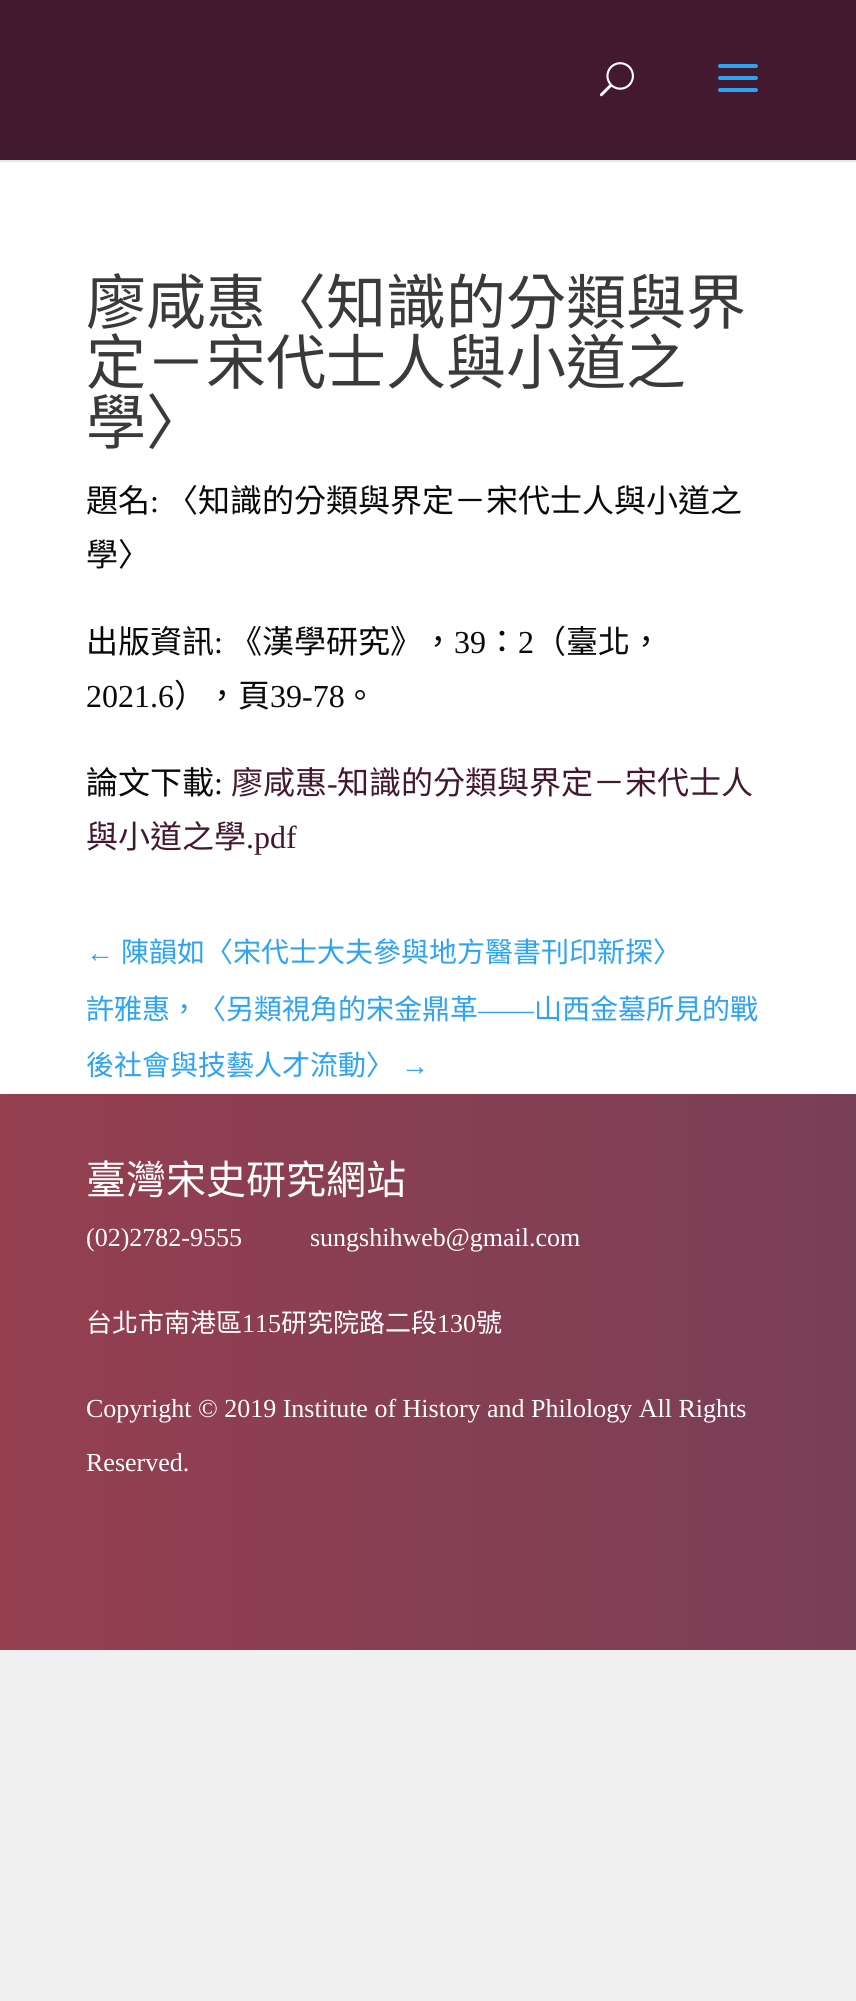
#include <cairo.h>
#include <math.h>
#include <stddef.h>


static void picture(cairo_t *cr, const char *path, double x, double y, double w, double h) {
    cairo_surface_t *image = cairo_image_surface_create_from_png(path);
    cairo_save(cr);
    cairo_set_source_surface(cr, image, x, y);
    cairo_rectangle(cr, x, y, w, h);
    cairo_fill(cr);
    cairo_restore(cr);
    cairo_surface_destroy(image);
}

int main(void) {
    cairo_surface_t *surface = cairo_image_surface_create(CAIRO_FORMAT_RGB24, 856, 2001);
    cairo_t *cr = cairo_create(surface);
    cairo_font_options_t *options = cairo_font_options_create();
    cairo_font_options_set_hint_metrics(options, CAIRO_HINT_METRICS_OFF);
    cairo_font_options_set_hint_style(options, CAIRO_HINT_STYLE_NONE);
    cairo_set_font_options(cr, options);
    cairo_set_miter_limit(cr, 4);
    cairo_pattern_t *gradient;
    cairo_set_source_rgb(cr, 0.941, 0.941, 0.941);
    cairo_paint(cr);
    cairo_set_source_rgb(cr, 0.902, 0.902, 0.902);
    cairo_rectangle(cr, 0, 160, 856, 2);
    cairo_fill(cr);
    cairo_set_source_rgb(cr, 0.259, 0.098, 0.184);
    cairo_rectangle(cr, 0, 0, 856, 160);
    cairo_fill(cr);
    picture(cr, "img1.png", 599, 62, 35, 35);
    picture(cr, "img2.png", 718, 64, 40, 28);
    cairo_set_source_rgb(cr, 1, 1, 1);
    cairo_rectangle(cr, 0, 162, 856, 932);
    cairo_fill(cr);
    cairo_select_font_face(cr, "Noto Sans CJK TC", CAIRO_FONT_SLANT_NORMAL, CAIRO_FONT_WEIGHT_NORMAL);
    cairo_set_font_size(cr, 60);
    cairo_set_source_rgb(cr, 0.227, 0.227, 0.227);
    cairo_move_to(cr, 86, 324);
    cairo_show_text(cr, "廖咸惠〈知識的分類與界");
    cairo_move_to(cr, 86, 384);
    cairo_show_text(cr, "定－宋代士人與小道之");
    cairo_move_to(cr, 86, 444);
    cairo_show_text(cr, "學〉");
    cairo_set_font_size(cr, 32);
    cairo_set_source_rgb(cr, 0.039, 0.039, 0.039);
    cairo_move_to(cr, 86, 512);
    cairo_show_text(cr, "題名");
    cairo_select_font_face(cr, "Liberation Serif", CAIRO_FONT_SLANT_NORMAL, CAIRO_FONT_WEIGHT_NORMAL);
    cairo_move_to(cr, 150, 512);
    cairo_show_text(cr, ":");
    cairo_select_font_face(cr, "Noto Sans CJK TC", CAIRO_FONT_SLANT_NORMAL, CAIRO_FONT_WEIGHT_NORMAL);
    cairo_move_to(cr, 166, 512);
    cairo_show_text(cr, "〈知識的分類與界定－宋代士人與小道之");
    cairo_move_to(cr, 86, 566);
    cairo_show_text(cr, "學〉");
    cairo_move_to(cr, 86, 653);
    cairo_show_text(cr, "出版資訊");
    cairo_select_font_face(cr, "Liberation Serif", CAIRO_FONT_SLANT_NORMAL, CAIRO_FONT_WEIGHT_NORMAL);
    cairo_move_to(cr, 214, 653);
    cairo_show_text(cr, ":");
    cairo_select_font_face(cr, "Noto Sans CJK TC", CAIRO_FONT_SLANT_NORMAL, CAIRO_FONT_WEIGHT_NORMAL);
    cairo_move_to(cr, 230, 653);
    cairo_show_text(cr, "《漢學研究》，");
    cairo_select_font_face(cr, "Liberation Serif", CAIRO_FONT_SLANT_NORMAL, CAIRO_FONT_WEIGHT_NORMAL);
    cairo_move_to(cr, 454, 653);
    cairo_show_text(cr, "39");
    cairo_select_font_face(cr, "Noto Sans CJK TC", CAIRO_FONT_SLANT_NORMAL, CAIRO_FONT_WEIGHT_NORMAL);
    cairo_move_to(cr, 486, 653);
    cairo_show_text(cr, "：");
    cairo_select_font_face(cr, "Liberation Serif", CAIRO_FONT_SLANT_NORMAL, CAIRO_FONT_WEIGHT_NORMAL);
    cairo_move_to(cr, 518, 653);
    cairo_show_text(cr, "2");
    cairo_select_font_face(cr, "Noto Sans CJK TC", CAIRO_FONT_SLANT_NORMAL, CAIRO_FONT_WEIGHT_NORMAL);
    cairo_move_to(cr, 534, 653);
    cairo_show_text(cr, "（臺北，");
    cairo_select_font_face(cr, "Liberation Serif", CAIRO_FONT_SLANT_NORMAL, CAIRO_FONT_WEIGHT_NORMAL);
    cairo_move_to(cr, 86, 707);
    cairo_show_text(cr, "2021.6");
    cairo_select_font_face(cr, "Noto Sans CJK TC", CAIRO_FONT_SLANT_NORMAL, CAIRO_FONT_WEIGHT_NORMAL);
    cairo_move_to(cr, 174, 707);
    cairo_show_text(cr, "），頁");
    cairo_select_font_face(cr, "Liberation Serif", CAIRO_FONT_SLANT_NORMAL, CAIRO_FONT_WEIGHT_NORMAL);
    cairo_move_to(cr, 270, 707);
    cairo_show_text(cr, "39-78");
    cairo_select_font_face(cr, "Noto Sans CJK TC", CAIRO_FONT_SLANT_NORMAL, CAIRO_FONT_WEIGHT_NORMAL);
    cairo_move_to(cr, 344, 707);
    cairo_show_text(cr, "。");
    cairo_move_to(cr, 86, 794);
    cairo_show_text(cr, "論文下載");
    cairo_select_font_face(cr, "Liberation Serif", CAIRO_FONT_SLANT_NORMAL, CAIRO_FONT_WEIGHT_NORMAL);
    cairo_move_to(cr, 214, 794);
    cairo_show_text(cr, ":");
    cairo_select_font_face(cr, "Noto Sans CJK TC", CAIRO_FONT_SLANT_NORMAL, CAIRO_FONT_WEIGHT_NORMAL);
    cairo_set_source_rgb(cr, 0.259, 0.098, 0.184);
    cairo_move_to(cr, 231, 794);
    cairo_show_text(cr, "廖咸惠");
    cairo_select_font_face(cr, "Liberation Serif", CAIRO_FONT_SLANT_NORMAL, CAIRO_FONT_WEIGHT_NORMAL);
    cairo_move_to(cr, 327, 794);
    cairo_show_text(cr, "-");
    cairo_select_font_face(cr, "Noto Sans CJK TC", CAIRO_FONT_SLANT_NORMAL, CAIRO_FONT_WEIGHT_NORMAL);
    cairo_move_to(cr, 337, 794);
    cairo_show_text(cr, "知識的分類與界定－宋代士人");
    cairo_move_to(cr, 86, 848);
    cairo_show_text(cr, "與小道之學");
    cairo_select_font_face(cr, "Liberation Serif", CAIRO_FONT_SLANT_NORMAL, CAIRO_FONT_WEIGHT_NORMAL);
    cairo_move_to(cr, 246, 848);
    cairo_show_text(cr, ".pdf");
    cairo_set_font_size(cr, 28);
    cairo_set_source_rgb(cr, 0.18, 0.639, 0.949);
    cairo_move_to(cr, 86, 962);
    cairo_show_text(cr, "←");
    cairo_select_font_face(cr, "Noto Sans CJK TC", CAIRO_FONT_SLANT_NORMAL, CAIRO_FONT_WEIGHT_NORMAL);
    cairo_move_to(cr, 121, 962);
    cairo_show_text(cr, "陳韻如〈宋代士大夫參與地方醫書刊印新探〉");
    cairo_move_to(cr, 86, 1019);
    cairo_show_text(cr, "許雅惠，〈另類視角的宋金鼎革");
    cairo_select_font_face(cr, "Liberation Serif", CAIRO_FONT_SLANT_NORMAL, CAIRO_FONT_WEIGHT_NORMAL);
    cairo_move_to(cr, 478, 1019);
    cairo_show_text(cr, "——");
    cairo_select_font_face(cr, "Noto Sans CJK TC", CAIRO_FONT_SLANT_NORMAL, CAIRO_FONT_WEIGHT_NORMAL);
    cairo_move_to(cr, 534, 1019);
    cairo_show_text(cr, "山西金墓所見的戰");
    cairo_move_to(cr, 86, 1075);
    cairo_show_text(cr, "後社會與技藝人才流動〉");
    cairo_select_font_face(cr, "Liberation Serif", CAIRO_FONT_SLANT_NORMAL, CAIRO_FONT_WEIGHT_NORMAL);
    cairo_move_to(cr, 401, 1075);
    cairo_show_text(cr, "→");
    gradient = cairo_pattern_create_linear(0, 1372, 856, 1372);
    cairo_pattern_add_color_stop_rgba(gradient, 0, 0.584, 0.247, 0.31, 1);
    cairo_pattern_add_color_stop_rgba(gradient, 1, 0.475, 0.247, 0.341, 1);
    cairo_set_source(cr, gradient);
    cairo_pattern_destroy(gradient);
    cairo_rectangle(cr, 0, 1094, 856, 556);
    cairo_fill(cr);
    cairo_select_font_face(cr, "Noto Sans CJK TC", CAIRO_FONT_SLANT_NORMAL, CAIRO_FONT_WEIGHT_NORMAL);
    cairo_set_font_size(cr, 40);
    cairo_set_source_rgb(cr, 1, 1, 1);
    cairo_move_to(cr, 86, 1194);
    cairo_show_text(cr, "臺灣宋史研究網站");
    cairo_select_font_face(cr, "Liberation Serif", CAIRO_FONT_SLANT_NORMAL, CAIRO_FONT_WEIGHT_NORMAL);
    cairo_set_font_size(cr, 26);
    cairo_move_to(cr, 86, 1246);
    cairo_show_text(cr, "(02)2782-9555");
    cairo_move_to(cr, 310, 1246);
    cairo_show_text(cr, "sungshihweb@gmail.com");
    cairo_select_font_face(cr, "Noto Sans CJK TC", CAIRO_FONT_SLANT_NORMAL, CAIRO_FONT_WEIGHT_NORMAL);
    cairo_move_to(cr, 86, 1332);
    cairo_show_text(cr, "台北市南港區");
    cairo_select_font_face(cr, "Liberation Serif", CAIRO_FONT_SLANT_NORMAL, CAIRO_FONT_WEIGHT_NORMAL);
    cairo_move_to(cr, 242, 1332);
    cairo_show_text(cr, "115");
    cairo_select_font_face(cr, "Noto Sans CJK TC", CAIRO_FONT_SLANT_NORMAL, CAIRO_FONT_WEIGHT_NORMAL);
    cairo_move_to(cr, 281, 1332);
    cairo_show_text(cr, "研究院路二段");
    cairo_select_font_face(cr, "Liberation Serif", CAIRO_FONT_SLANT_NORMAL, CAIRO_FONT_WEIGHT_NORMAL);
    cairo_move_to(cr, 437, 1332);
    cairo_show_text(cr, "130");
    cairo_select_font_face(cr, "Noto Sans CJK TC", CAIRO_FONT_SLANT_NORMAL, CAIRO_FONT_WEIGHT_NORMAL);
    cairo_move_to(cr, 476, 1332);
    cairo_show_text(cr, "號");
    cairo_select_font_face(cr, "Liberation Serif", CAIRO_FONT_SLANT_NORMAL, CAIRO_FONT_WEIGHT_NORMAL);
    cairo_move_to(cr, 86, 1417);
    cairo_show_text(cr, "Copyright © 2019 Institute of History and Philology All Rights");
    cairo_move_to(cr, 86, 1471);
    cairo_show_text(cr, "Reserved.");
    cairo_surface_write_to_png(surface, "page.png");
    cairo_font_options_destroy(options);
    cairo_destroy(cr);
    cairo_surface_destroy(surface);
    return 0;
}
